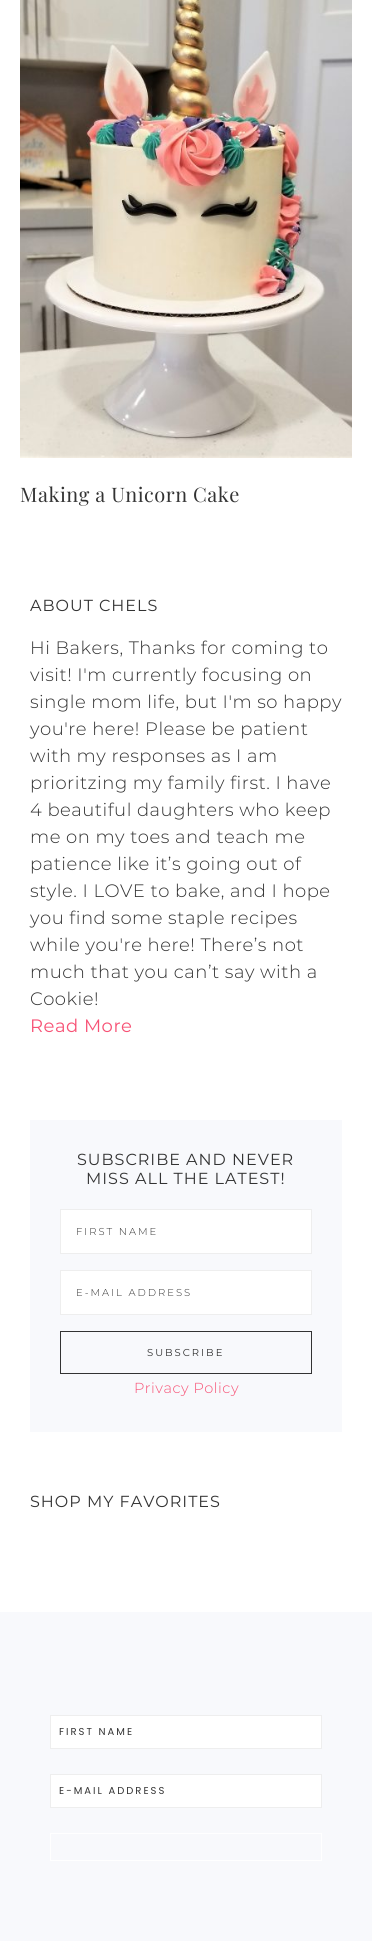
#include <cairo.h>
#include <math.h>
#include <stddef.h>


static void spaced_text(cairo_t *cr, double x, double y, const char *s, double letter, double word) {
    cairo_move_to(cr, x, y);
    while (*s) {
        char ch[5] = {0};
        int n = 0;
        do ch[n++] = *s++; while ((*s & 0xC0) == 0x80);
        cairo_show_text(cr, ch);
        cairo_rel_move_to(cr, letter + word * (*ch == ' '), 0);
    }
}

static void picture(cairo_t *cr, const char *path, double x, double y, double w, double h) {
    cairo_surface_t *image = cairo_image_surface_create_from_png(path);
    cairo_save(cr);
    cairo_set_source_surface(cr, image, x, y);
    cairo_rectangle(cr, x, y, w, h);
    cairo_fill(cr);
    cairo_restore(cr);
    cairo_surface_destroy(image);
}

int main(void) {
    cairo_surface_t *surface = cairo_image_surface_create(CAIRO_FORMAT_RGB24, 372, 1941);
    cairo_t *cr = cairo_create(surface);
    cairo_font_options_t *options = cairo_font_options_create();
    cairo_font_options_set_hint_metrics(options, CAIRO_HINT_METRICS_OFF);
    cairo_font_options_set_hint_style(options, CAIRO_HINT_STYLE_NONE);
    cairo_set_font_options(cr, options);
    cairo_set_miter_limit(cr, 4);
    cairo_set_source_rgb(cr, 1, 1, 1);
    cairo_paint(cr);
    picture(cr, "img1.png", 20, 0, 332, 458);
    cairo_select_font_face(cr, "Playfair Display", CAIRO_FONT_SLANT_NORMAL, CAIRO_FONT_WEIGHT_NORMAL);
    cairo_set_font_size(cr, 20);
    cairo_set_source_rgb(cr, 0.2, 0.2, 0.2);
    spaced_text(cr, 20, 502, "Making a Unicorn Cake", 0.5, 0);
    cairo_select_font_face(cr, "Montserrat", CAIRO_FONT_SLANT_NORMAL, CAIRO_FONT_WEIGHT_NORMAL);
    cairo_set_font_size(cr, 16);
    spaced_text(cr, 30, 611, "ABOUT CHELS", 1, 0);
    cairo_select_font_face(cr, "Montserrat Light", CAIRO_FONT_SLANT_NORMAL, CAIRO_FONT_WEIGHT_NORMAL);
    cairo_set_font_size(cr, 18);
    spaced_text(cr, 30, 654, "Hi Bakers, Thanks for coming to", 0.5, 0);
    spaced_text(cr, 30, 681, "visit! I'm currently focusing on", 0.5, 0);
    spaced_text(cr, 30, 708, "single mom life, but I'm so happy", 0.5, 0);
    spaced_text(cr, 30, 735, "you're here! Please be patient", 0.5, 0);
    spaced_text(cr, 30, 762, "with my responses as I am", 0.5, 0);
    spaced_text(cr, 30, 789, "prioritzing my family first. I have", 0.5, 0);
    spaced_text(cr, 30, 816, "4 beautiful daughters who keep", 0.5, 0);
    spaced_text(cr, 30, 843, "me on my toes and teach me", 0.5, 0);
    spaced_text(cr, 30, 870, "patience like it’s going out of", 0.5, 0);
    spaced_text(cr, 30, 897, "style. I LOVE to bake, and I hope", 0.5, 0);
    spaced_text(cr, 30, 924, "you find some staple recipes", 0.5, 0);
    spaced_text(cr, 30, 951, "while you're here! There’s not", 0.5, 0);
    spaced_text(cr, 30, 978, "much that you can’t say with a", 0.5, 0);
    spaced_text(cr, 30, 1005, "Cookie!", 0.5, 0);
    cairo_select_font_face(cr, "Montserrat", CAIRO_FONT_SLANT_NORMAL, CAIRO_FONT_WEIGHT_NORMAL);
    cairo_set_source_rgb(cr, 0.965, 0.322, 0.459);
    spaced_text(cr, 30, 1032, "Read More", 0.5, 0);
    cairo_set_source_rgb(cr, 0.969, 0.976, 0.988);
    cairo_rectangle(cr, 30, 1120, 312, 312);
    cairo_fill(cr);
    cairo_set_font_size(cr, 16);
    cairo_set_source_rgb(cr, 0.2, 0.2, 0.2);
    spaced_text(cr, 77, 1165, "SUBSCRIBE AND NEVER", 1, 0);
    spaced_text(cr, 86, 1184, "MISS ALL THE LATEST!", 1, 0);
    cairo_set_source_rgb(cr, 1, 1, 1);
    cairo_rectangle(cr, 60.5, 1209.5, 251, 44);
    cairo_fill_preserve(cr);
    cairo_set_source_rgb(cr, 0.933, 0.933, 0.933);
    cairo_set_line_width(cr, 1);
    cairo_stroke(cr);
    cairo_select_font_face(cr, "Montserrat Light", CAIRO_FONT_SLANT_NORMAL, CAIRO_FONT_WEIGHT_NORMAL);
    cairo_set_font_size(cr, 10);
    cairo_set_source_rgb(cr, 0.2, 0.2, 0.2);
    spaced_text(cr, 76, 1235, "FIRST NAME", 2, 0);
    cairo_set_source_rgb(cr, 1, 1, 1);
    cairo_rectangle(cr, 60.5, 1270.5, 251, 44);
    cairo_fill_preserve(cr);
    cairo_set_source_rgb(cr, 0.933, 0.933, 0.933);
    cairo_stroke(cr);
    cairo_set_source_rgb(cr, 0.2, 0.2, 0.2);
    spaced_text(cr, 76, 1296, "E-MAIL ADDRESS", 2, 0);
    cairo_rectangle(cr, 60.5, 1331.5, 251, 42);
    cairo_stroke(cr);
    cairo_select_font_face(cr, "Montserrat", CAIRO_FONT_SLANT_NORMAL, CAIRO_FONT_WEIGHT_NORMAL);
    spaced_text(cr, 147, 1356, "SUBSCRIBE", 2, 0);
    cairo_select_font_face(cr, "Montserrat Light", CAIRO_FONT_SLANT_NORMAL, CAIRO_FONT_WEIGHT_NORMAL);
    cairo_set_font_size(cr, 14.5);
    cairo_set_source_rgb(cr, 0.965, 0.322, 0.459);
    spaced_text(cr, 134, 1393, "Privacy Policy", 0.5, 0);
    cairo_select_font_face(cr, "Montserrat", CAIRO_FONT_SLANT_NORMAL, CAIRO_FONT_WEIGHT_NORMAL);
    cairo_set_font_size(cr, 16);
    cairo_set_source_rgb(cr, 0.2, 0.2, 0.2);
    spaced_text(cr, 30, 1507, "SHOP MY FAVORITES", 1, 0);
    cairo_set_source_rgb(cr, 0.969, 0.976, 0.988);
    cairo_rectangle(cr, 0, 1612, 372, 329);
    cairo_fill(cr);
    cairo_set_source_rgb(cr, 1, 1, 1);
    cairo_rectangle(cr, 50.5, 1715.5, 271, 33);
    cairo_fill_preserve(cr);
    cairo_set_source_rgb(cr, 0.933, 0.933, 0.933);
    cairo_stroke(cr);
    cairo_select_font_face(cr, "Poppins", CAIRO_FONT_SLANT_NORMAL, CAIRO_FONT_WEIGHT_NORMAL);
    cairo_set_font_size(cr, 10);
    cairo_set_source_rgb(cr, 0.2, 0.2, 0.2);
    spaced_text(cr, 59, 1735, "FIRST NAME", 2, 0);
    cairo_set_source_rgb(cr, 1, 1, 1);
    cairo_rectangle(cr, 50.5, 1774.5, 271, 33);
    cairo_fill_preserve(cr);
    cairo_set_source_rgb(cr, 0.933, 0.933, 0.933);
    cairo_stroke(cr);
    cairo_set_source_rgb(cr, 0.2, 0.2, 0.2);
    spaced_text(cr, 59, 1794, "E-MAIL ADDRESS", 2, 0);
    cairo_rectangle(cr, 50.5, 1833.5, 271, 27);
    cairo_set_source_rgb(cr, 1, 1, 1);
    cairo_stroke(cr);
    cairo_surface_write_to_png(surface, "page.png");
    cairo_font_options_destroy(options);
    cairo_destroy(cr);
    cairo_surface_destroy(surface);
    return 0;
}
